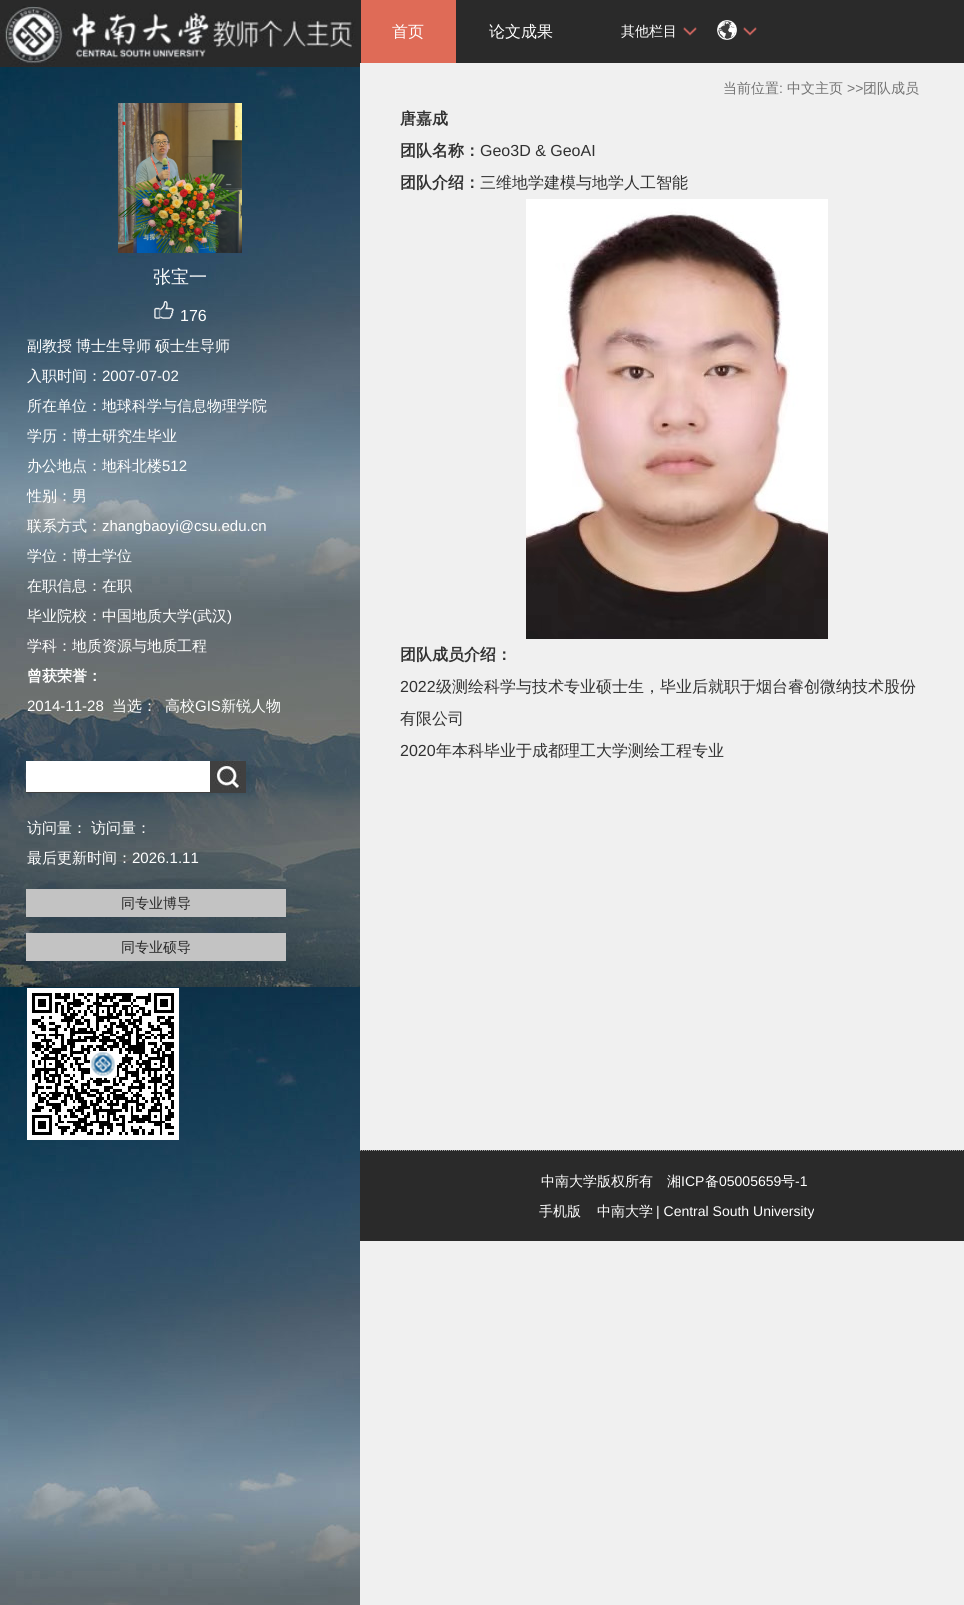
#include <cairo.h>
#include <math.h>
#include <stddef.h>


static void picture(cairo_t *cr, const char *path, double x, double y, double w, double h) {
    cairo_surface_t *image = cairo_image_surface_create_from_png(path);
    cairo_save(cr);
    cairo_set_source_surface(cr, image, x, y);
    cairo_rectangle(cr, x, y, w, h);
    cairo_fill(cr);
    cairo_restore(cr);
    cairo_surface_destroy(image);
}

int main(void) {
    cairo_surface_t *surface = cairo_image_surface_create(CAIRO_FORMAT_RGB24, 964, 1605);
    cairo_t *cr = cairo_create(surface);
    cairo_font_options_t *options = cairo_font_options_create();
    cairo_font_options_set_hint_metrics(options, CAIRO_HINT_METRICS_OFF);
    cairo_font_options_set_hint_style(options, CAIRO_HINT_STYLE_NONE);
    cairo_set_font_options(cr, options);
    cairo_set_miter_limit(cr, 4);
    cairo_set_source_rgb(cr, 0.941, 0.941, 0.941);
    cairo_paint(cr);
    picture(cr, "img1.png", 0, 67, 360, 1538);
    cairo_set_source_rgb(cr, 0.165, 0.165, 0.165);
    cairo_rectangle(cr, 0, 0, 360, 6);
    cairo_fill(cr);
    picture(cr, "img2.png", 0, 6, 360, 61);
    picture(cr, "img3.png", 118, 103, 124, 150);
    cairo_select_font_face(cr, "WenQuanYi Zen Hei Medium", CAIRO_FONT_SLANT_NORMAL, CAIRO_FONT_WEIGHT_NORMAL);
    cairo_set_font_size(cr, 18);
    cairo_set_source_rgb(cr, 1, 1, 1);
    cairo_move_to(cr, 153, 283);
    cairo_show_text(cr, "张宝一");
    picture(cr, "img4.png", 154, 301, 20, 18);
    cairo_select_font_face(cr, "Liberation Sans", CAIRO_FONT_SLANT_NORMAL, CAIRO_FONT_WEIGHT_NORMAL);
    cairo_set_font_size(cr, 16);
    cairo_move_to(cr, 180, 321);
    cairo_show_text(cr, "176");
    cairo_select_font_face(cr, "WenQuanYi Zen Hei Medium", CAIRO_FONT_SLANT_NORMAL, CAIRO_FONT_WEIGHT_NORMAL);
    cairo_set_font_size(cr, 15);
    cairo_move_to(cr, 27, 351);
    cairo_show_text(cr, "副教授");
    cairo_move_to(cr, 76, 351);
    cairo_show_text(cr, "博士生导师");
    cairo_move_to(cr, 155, 351);
    cairo_show_text(cr, "硕士生导师");
    cairo_move_to(cr, 27, 381);
    cairo_show_text(cr, "入职时间：");
    cairo_select_font_face(cr, "Liberation Sans", CAIRO_FONT_SLANT_NORMAL, CAIRO_FONT_WEIGHT_NORMAL);
    cairo_move_to(cr, 102, 381);
    cairo_show_text(cr, "2007-07-02");
    cairo_select_font_face(cr, "WenQuanYi Zen Hei Medium", CAIRO_FONT_SLANT_NORMAL, CAIRO_FONT_WEIGHT_NORMAL);
    cairo_move_to(cr, 27, 411);
    cairo_show_text(cr, "所在单位：地球科学与信息物理学院");
    cairo_move_to(cr, 27, 441);
    cairo_show_text(cr, "学历：博士研究生毕业");
    cairo_move_to(cr, 27, 471);
    cairo_show_text(cr, "办公地点：地科北楼");
    cairo_select_font_face(cr, "Liberation Sans", CAIRO_FONT_SLANT_NORMAL, CAIRO_FONT_WEIGHT_NORMAL);
    cairo_move_to(cr, 162, 471);
    cairo_show_text(cr, "512");
    cairo_select_font_face(cr, "WenQuanYi Zen Hei Medium", CAIRO_FONT_SLANT_NORMAL, CAIRO_FONT_WEIGHT_NORMAL);
    cairo_move_to(cr, 27, 501);
    cairo_show_text(cr, "性别：男");
    cairo_move_to(cr, 27, 531);
    cairo_show_text(cr, "联系方式：");
    cairo_select_font_face(cr, "Liberation Sans", CAIRO_FONT_SLANT_NORMAL, CAIRO_FONT_WEIGHT_NORMAL);
    cairo_move_to(cr, 102, 531);
    cairo_show_text(cr, "zhangbaoyi@csu.edu.cn");
    cairo_select_font_face(cr, "WenQuanYi Zen Hei Medium", CAIRO_FONT_SLANT_NORMAL, CAIRO_FONT_WEIGHT_NORMAL);
    cairo_move_to(cr, 27, 561);
    cairo_show_text(cr, "学位：博士学位");
    cairo_move_to(cr, 27, 591);
    cairo_show_text(cr, "在职信息：在职");
    cairo_move_to(cr, 27, 621);
    cairo_show_text(cr, "毕业院校：中国地质大学");
    cairo_select_font_face(cr, "Liberation Sans", CAIRO_FONT_SLANT_NORMAL, CAIRO_FONT_WEIGHT_NORMAL);
    cairo_move_to(cr, 192, 621);
    cairo_show_text(cr, "(");
    cairo_select_font_face(cr, "WenQuanYi Zen Hei Medium", CAIRO_FONT_SLANT_NORMAL, CAIRO_FONT_WEIGHT_NORMAL);
    cairo_move_to(cr, 197, 621);
    cairo_show_text(cr, "武汉");
    cairo_select_font_face(cr, "Liberation Sans", CAIRO_FONT_SLANT_NORMAL, CAIRO_FONT_WEIGHT_NORMAL);
    cairo_move_to(cr, 227, 621);
    cairo_show_text(cr, ")");
    cairo_select_font_face(cr, "WenQuanYi Zen Hei Medium", CAIRO_FONT_SLANT_NORMAL, CAIRO_FONT_WEIGHT_NORMAL);
    cairo_move_to(cr, 27, 651);
    cairo_show_text(cr, "学科：地质资源与地质工程");
    cairo_select_font_face(cr, "WenQuanYi Zen Hei", CAIRO_FONT_SLANT_NORMAL, CAIRO_FONT_WEIGHT_BOLD);
    cairo_move_to(cr, 27, 681);
    cairo_show_text(cr, "曾获荣誉：");
    cairo_select_font_face(cr, "Liberation Sans", CAIRO_FONT_SLANT_NORMAL, CAIRO_FONT_WEIGHT_NORMAL);
    cairo_move_to(cr, 27, 711);
    cairo_show_text(cr, "2014-11-28");
    cairo_select_font_face(cr, "WenQuanYi Zen Hei Medium", CAIRO_FONT_SLANT_NORMAL, CAIRO_FONT_WEIGHT_NORMAL);
    cairo_move_to(cr, 112, 711);
    cairo_show_text(cr, "当选：");
    cairo_move_to(cr, 165, 711);
    cairo_show_text(cr, "高校");
    cairo_select_font_face(cr, "Liberation Sans", CAIRO_FONT_SLANT_NORMAL, CAIRO_FONT_WEIGHT_NORMAL);
    cairo_move_to(cr, 195, 711);
    cairo_show_text(cr, "GIS");
    cairo_select_font_face(cr, "WenQuanYi Zen Hei Medium", CAIRO_FONT_SLANT_NORMAL, CAIRO_FONT_WEIGHT_NORMAL);
    cairo_move_to(cr, 221, 711);
    cairo_show_text(cr, "新锐人物");
    cairo_set_source_rgb(cr, 0.251, 0.251, 0.251);
    cairo_rectangle(cr, 26, 761, 220, 32);
    cairo_fill(cr);
    cairo_set_source_rgb(cr, 1, 1, 1);
    cairo_rectangle(cr, 26, 761, 184, 31);
    cairo_fill(cr);
    picture(cr, "img5.png", 213, 761, 28, 29);
    cairo_move_to(cr, 27, 833);
    cairo_show_text(cr, "访问量：");
    cairo_move_to(cr, 91, 833);
    cairo_show_text(cr, "访问量：");
    cairo_move_to(cr, 27, 863);
    cairo_show_text(cr, "最后更新时间：");
    cairo_select_font_face(cr, "Liberation Sans", CAIRO_FONT_SLANT_NORMAL, CAIRO_FONT_WEIGHT_NORMAL);
    cairo_move_to(cr, 132, 863);
    cairo_show_text(cr, "2026.1.11");
    cairo_set_source_rgb(cr, 0.765, 0.765, 0.765);
    cairo_rectangle(cr, 26, 889, 260, 28);
    cairo_fill(cr);
    cairo_select_font_face(cr, "WenQuanYi Zen Hei Medium", CAIRO_FONT_SLANT_NORMAL, CAIRO_FONT_WEIGHT_NORMAL);
    cairo_set_font_size(cr, 14);
    cairo_set_source_rgb(cr, 0.149, 0.149, 0.149);
    cairo_move_to(cr, 121, 908);
    cairo_show_text(cr, "同专业博导");
    cairo_set_source_rgb(cr, 0.765, 0.765, 0.765);
    cairo_rectangle(cr, 26, 933, 260, 28);
    cairo_fill(cr);
    cairo_set_source_rgb(cr, 0.149, 0.149, 0.149);
    cairo_move_to(cr, 121, 952);
    cairo_show_text(cr, "同专业硕导");
    cairo_set_source_rgb(cr, 1, 1, 1);
    cairo_rectangle(cr, 27, 988, 152, 152);
    cairo_fill(cr);
    picture(cr, "img6.png", 32, 993, 142, 142);
    cairo_set_source_rgb(cr, 0.165, 0.165, 0.165);
    cairo_rectangle(cr, 360, 0, 604, 63);
    cairo_fill(cr);
    cairo_set_source_rgb(cr, 0.875, 0.42, 0.341);
    cairo_rectangle(cr, 361, 0, 95, 63);
    cairo_fill(cr);
    cairo_set_font_size(cr, 16);
    cairo_set_source_rgb(cr, 1, 1, 1);
    cairo_move_to(cr, 392, 37);
    cairo_show_text(cr, "首页");
    cairo_move_to(cr, 489, 37);
    cairo_show_text(cr, "论文成果");
    picture(cr, "img7.png", 683, 27, 14, 9);
    cairo_set_font_size(cr, 14);
    cairo_move_to(cr, 621, 36);
    cairo_show_text(cr, "其他栏目");
    picture(cr, "img7.png", 743, 27, 14, 9);
    picture(cr, "img8.png", 717, 20, 20, 20);
    cairo_set_source_rgb(cr, 0.447, 0.447, 0.447);
    cairo_move_to(cr, 723, 93);
    cairo_show_text(cr, "当前位置");
    cairo_select_font_face(cr, "Liberation Sans", CAIRO_FONT_SLANT_NORMAL, CAIRO_FONT_WEIGHT_NORMAL);
    cairo_move_to(cr, 779, 93);
    cairo_show_text(cr, ":");
    cairo_select_font_face(cr, "WenQuanYi Zen Hei Medium", CAIRO_FONT_SLANT_NORMAL, CAIRO_FONT_WEIGHT_NORMAL);
    cairo_move_to(cr, 787, 93);
    cairo_show_text(cr, "中文主页");
    cairo_select_font_face(cr, "Liberation Sans", CAIRO_FONT_SLANT_NORMAL, CAIRO_FONT_WEIGHT_NORMAL);
    cairo_move_to(cr, 847, 93);
    cairo_show_text(cr, ">>");
    cairo_select_font_face(cr, "WenQuanYi Zen Hei Medium", CAIRO_FONT_SLANT_NORMAL, CAIRO_FONT_WEIGHT_NORMAL);
    cairo_move_to(cr, 863, 93);
    cairo_show_text(cr, "团队成员");
    cairo_select_font_face(cr, "WenQuanYi Zen Hei", CAIRO_FONT_SLANT_NORMAL, CAIRO_FONT_WEIGHT_BOLD);
    cairo_set_font_size(cr, 16);
    cairo_set_source_rgb(cr, 0.192, 0.192, 0.192);
    cairo_move_to(cr, 400, 124);
    cairo_show_text(cr, "唐嘉成");
    cairo_move_to(cr, 400, 156);
    cairo_show_text(cr, "团队名称：");
    cairo_select_font_face(cr, "Liberation Sans", CAIRO_FONT_SLANT_NORMAL, CAIRO_FONT_WEIGHT_NORMAL);
    cairo_move_to(cr, 480, 156);
    cairo_show_text(cr, "Geo3D & GeoAI");
    cairo_select_font_face(cr, "WenQuanYi Zen Hei", CAIRO_FONT_SLANT_NORMAL, CAIRO_FONT_WEIGHT_BOLD);
    cairo_move_to(cr, 400, 188);
    cairo_show_text(cr, "团队介绍：");
    cairo_select_font_face(cr, "WenQuanYi Zen Hei Medium", CAIRO_FONT_SLANT_NORMAL, CAIRO_FONT_WEIGHT_NORMAL);
    cairo_move_to(cr, 480, 188);
    cairo_show_text(cr, "三维地学建模与地学人工智能");
    picture(cr, "img9.png", 526, 199, 302, 440);
    cairo_select_font_face(cr, "WenQuanYi Zen Hei", CAIRO_FONT_SLANT_NORMAL, CAIRO_FONT_WEIGHT_BOLD);
    cairo_move_to(cr, 400, 660);
    cairo_show_text(cr, "团队成员介绍：");
    cairo_select_font_face(cr, "Liberation Sans", CAIRO_FONT_SLANT_NORMAL, CAIRO_FONT_WEIGHT_NORMAL);
    cairo_move_to(cr, 400, 692);
    cairo_show_text(cr, "2022");
    cairo_select_font_face(cr, "WenQuanYi Zen Hei Medium", CAIRO_FONT_SLANT_NORMAL, CAIRO_FONT_WEIGHT_NORMAL);
    cairo_move_to(cr, 436, 692);
    cairo_show_text(cr, "级测绘科学与技术专业硕士生，毕业后就职于烟台睿创微纳技术股份");
    cairo_move_to(cr, 400, 724);
    cairo_show_text(cr, "有限公司");
    cairo_select_font_face(cr, "Liberation Sans", CAIRO_FONT_SLANT_NORMAL, CAIRO_FONT_WEIGHT_NORMAL);
    cairo_move_to(cr, 400, 756);
    cairo_show_text(cr, "2020");
    cairo_select_font_face(cr, "WenQuanYi Zen Hei Medium", CAIRO_FONT_SLANT_NORMAL, CAIRO_FONT_WEIGHT_NORMAL);
    cairo_move_to(cr, 436, 756);
    cairo_show_text(cr, "年本科毕业于成都理工大学测绘工程专业");
    cairo_set_source_rgb(cr, 0.165, 0.165, 0.165);
    cairo_rectangle(cr, 360, 1150, 604, 91);
    cairo_fill(cr);
    cairo_new_path(cr);
    cairo_move_to(cr, 360, 1150.5);
    cairo_line_to(cr, 964, 1150.5);
    cairo_set_source_rgb(cr, 0.62, 0.62, 0.62);
    cairo_set_line_width(cr, 1);
    cairo_set_dash(cr, (double[]){1, 1}, 2, 0);
    cairo_stroke(cr);
    cairo_set_font_size(cr, 14);
    cairo_set_source_rgb(cr, 1, 1, 1);
    cairo_move_to(cr, 541, 1186);
    cairo_show_text(cr, "中南大学版权所有　湘");
    cairo_select_font_face(cr, "Liberation Sans", CAIRO_FONT_SLANT_NORMAL, CAIRO_FONT_WEIGHT_NORMAL);
    cairo_move_to(cr, 681, 1186);
    cairo_show_text(cr, "ICP");
    cairo_select_font_face(cr, "WenQuanYi Zen Hei Medium", CAIRO_FONT_SLANT_NORMAL, CAIRO_FONT_WEIGHT_NORMAL);
    cairo_move_to(cr, 705, 1186);
    cairo_show_text(cr, "备");
    cairo_select_font_face(cr, "Liberation Sans", CAIRO_FONT_SLANT_NORMAL, CAIRO_FONT_WEIGHT_NORMAL);
    cairo_move_to(cr, 719, 1186);
    cairo_show_text(cr, "05005659");
    cairo_select_font_face(cr, "WenQuanYi Zen Hei Medium", CAIRO_FONT_SLANT_NORMAL, CAIRO_FONT_WEIGHT_NORMAL);
    cairo_move_to(cr, 781, 1186);
    cairo_show_text(cr, "号");
    cairo_select_font_face(cr, "Liberation Sans", CAIRO_FONT_SLANT_NORMAL, CAIRO_FONT_WEIGHT_NORMAL);
    cairo_move_to(cr, 795, 1186);
    cairo_show_text(cr, "-1");
    cairo_select_font_face(cr, "WenQuanYi Zen Hei Medium", CAIRO_FONT_SLANT_NORMAL, CAIRO_FONT_WEIGHT_NORMAL);
    cairo_move_to(cr, 539, 1216);
    cairo_show_text(cr, "手机版");
    cairo_move_to(cr, 597, 1216);
    cairo_show_text(cr, "中南大学");
    cairo_select_font_face(cr, "Liberation Sans", CAIRO_FONT_SLANT_NORMAL, CAIRO_FONT_WEIGHT_NORMAL);
    cairo_move_to(cr, 656, 1216);
    cairo_show_text(cr, "| Central South University");
    cairo_surface_write_to_png(surface, "page.png");
    cairo_font_options_destroy(options);
    cairo_destroy(cr);
    cairo_surface_destroy(surface);
    return 0;
}
